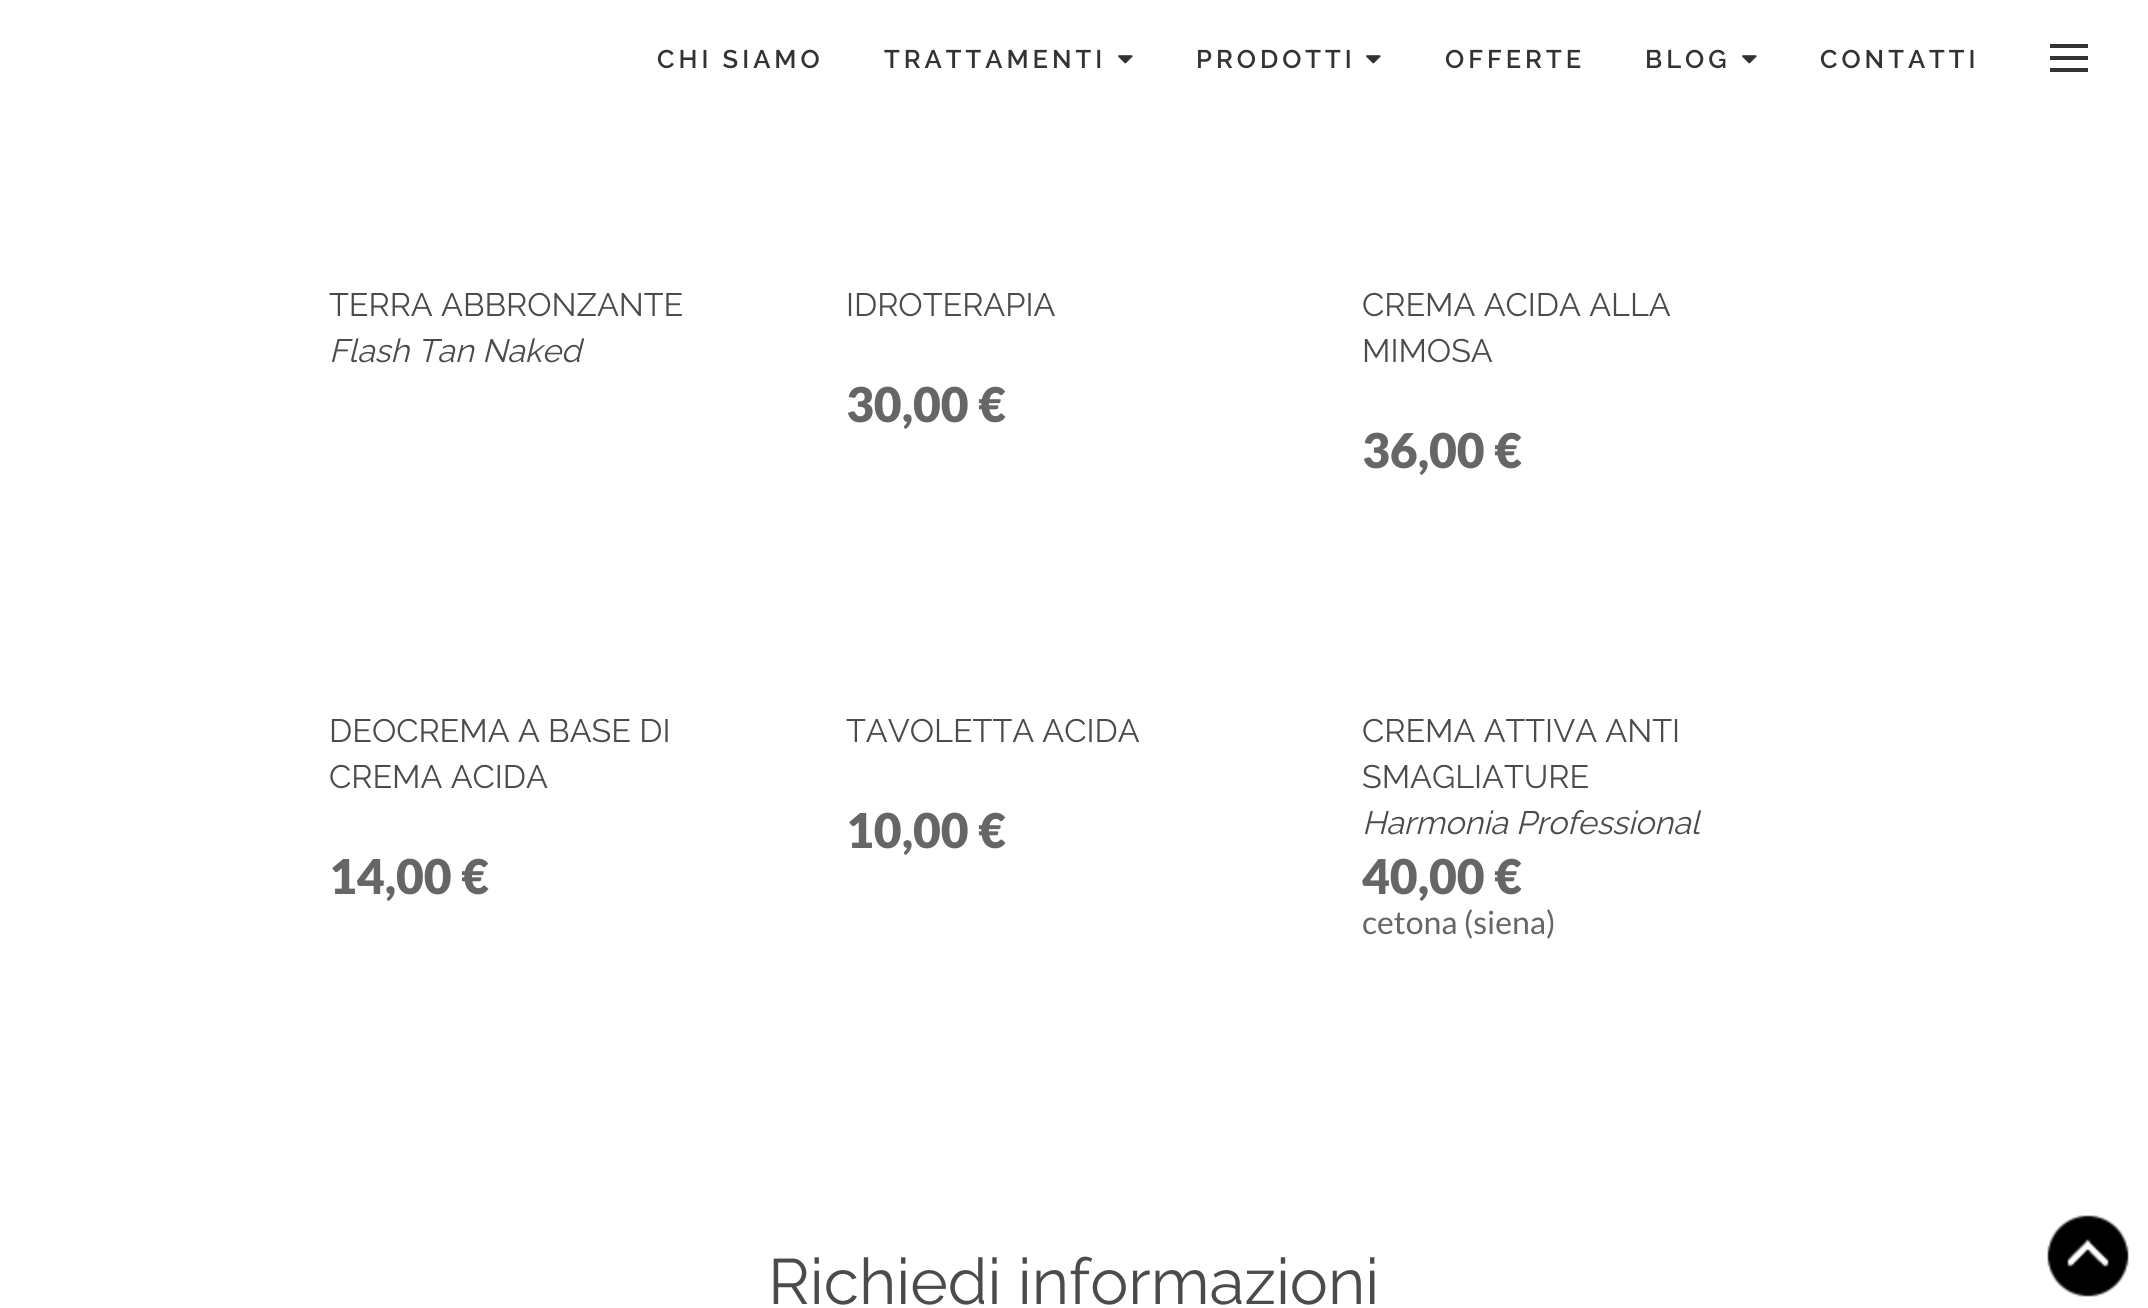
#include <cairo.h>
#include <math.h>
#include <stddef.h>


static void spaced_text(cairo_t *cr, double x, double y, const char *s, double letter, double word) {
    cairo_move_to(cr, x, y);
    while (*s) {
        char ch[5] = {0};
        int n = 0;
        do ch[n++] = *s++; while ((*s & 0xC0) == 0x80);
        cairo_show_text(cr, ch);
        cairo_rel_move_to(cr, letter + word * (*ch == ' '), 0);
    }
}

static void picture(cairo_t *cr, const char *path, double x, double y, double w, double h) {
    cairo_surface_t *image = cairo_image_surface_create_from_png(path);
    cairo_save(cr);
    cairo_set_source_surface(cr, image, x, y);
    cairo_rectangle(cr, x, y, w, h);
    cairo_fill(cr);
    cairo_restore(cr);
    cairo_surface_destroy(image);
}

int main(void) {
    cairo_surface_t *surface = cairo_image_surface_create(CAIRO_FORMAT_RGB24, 2148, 1308);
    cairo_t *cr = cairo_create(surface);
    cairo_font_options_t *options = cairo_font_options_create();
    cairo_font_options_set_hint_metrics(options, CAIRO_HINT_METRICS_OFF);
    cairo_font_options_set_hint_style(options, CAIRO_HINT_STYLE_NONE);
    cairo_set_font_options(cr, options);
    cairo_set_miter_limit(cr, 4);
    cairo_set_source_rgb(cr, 1, 1, 1);
    cairo_paint(cr);
    cairo_select_font_face(cr, "Raleway SemiBold", CAIRO_FONT_SLANT_NORMAL, CAIRO_FONT_WEIGHT_NORMAL);
    cairo_set_font_size(cr, 25.5);
    cairo_set_source_rgb(cr, 0.2, 0.2, 0.2);
    spaced_text(cr, 657, 68, "CHI SIAMO", 4, 0);
    spaced_text(cr, 884, 68, "TRATTAMENTI", 4, 0);
    picture(cr, "img1.png", 1118, 55, 15, 9);
    spaced_text(cr, 1196, 68, "PRODOTTI", 4, 0);
    picture(cr, "img1.png", 1366, 55, 15, 9);
    spaced_text(cr, 1445, 68, "OFFERTE", 4, 0);
    spaced_text(cr, 1645, 68, "BLOG", 4, 0);
    picture(cr, "img1.png", 1742, 55, 15, 9);
    spaced_text(cr, 1820, 68, "CONTATTI", 4, 0);
    cairo_rectangle(cr, 2050, 44, 38, 4);
    cairo_fill(cr);
    cairo_rectangle(cr, 2050, 56, 38, 4);
    cairo_fill(cr);
    cairo_rectangle(cr, 2050, 68, 38, 4);
    cairo_fill(cr);
    cairo_select_font_face(cr, "Raleway", CAIRO_FONT_SLANT_NORMAL, CAIRO_FONT_WEIGHT_NORMAL);
    cairo_set_font_size(cr, 32.4);
    cairo_set_source_rgb(cr, 0.294, 0.294, 0.294);
    cairo_move_to(cr, 329, 316);
    cairo_show_text(cr, "TERRA ABBRONZANTE");
    cairo_select_font_face(cr, "Raleway", CAIRO_FONT_SLANT_ITALIC, CAIRO_FONT_WEIGHT_NORMAL);
    cairo_move_to(cr, 329, 362);
    cairo_show_text(cr, "Flash Tan Naked");
    cairo_select_font_face(cr, "Raleway", CAIRO_FONT_SLANT_NORMAL, CAIRO_FONT_WEIGHT_NORMAL);
    cairo_move_to(cr, 846, 316);
    cairo_show_text(cr, "IDROTERAPIA");
    cairo_select_font_face(cr, "Lato Black", CAIRO_FONT_SLANT_NORMAL, CAIRO_FONT_WEIGHT_NORMAL);
    cairo_set_font_size(cr, 48);
    cairo_set_source_rgb(cr, 0.4, 0.4, 0.4);
    cairo_move_to(cr, 846, 422);
    cairo_show_text(cr, "30,00 €");
    cairo_select_font_face(cr, "Raleway", CAIRO_FONT_SLANT_NORMAL, CAIRO_FONT_WEIGHT_NORMAL);
    cairo_set_font_size(cr, 32.4);
    cairo_set_source_rgb(cr, 0.294, 0.294, 0.294);
    cairo_move_to(cr, 1362, 316);
    cairo_show_text(cr, "CREMA ACIDA ALLA");
    cairo_move_to(cr, 1362, 362);
    cairo_show_text(cr, "MIMOSA");
    cairo_select_font_face(cr, "Lato Black", CAIRO_FONT_SLANT_NORMAL, CAIRO_FONT_WEIGHT_NORMAL);
    cairo_set_font_size(cr, 48);
    cairo_set_source_rgb(cr, 0.4, 0.4, 0.4);
    cairo_move_to(cr, 1362, 468);
    cairo_show_text(cr, "36,00 €");
    cairo_select_font_face(cr, "Raleway", CAIRO_FONT_SLANT_NORMAL, CAIRO_FONT_WEIGHT_NORMAL);
    cairo_set_font_size(cr, 32.4);
    cairo_set_source_rgb(cr, 0.294, 0.294, 0.294);
    cairo_move_to(cr, 329, 742);
    cairo_show_text(cr, "DEOCREMA A BASE DI");
    cairo_move_to(cr, 329, 788);
    cairo_show_text(cr, "CREMA ACIDA");
    cairo_select_font_face(cr, "Lato Black", CAIRO_FONT_SLANT_NORMAL, CAIRO_FONT_WEIGHT_NORMAL);
    cairo_set_font_size(cr, 48);
    cairo_set_source_rgb(cr, 0.4, 0.4, 0.4);
    cairo_move_to(cr, 329, 894);
    cairo_show_text(cr, "14,00 €");
    cairo_select_font_face(cr, "Raleway", CAIRO_FONT_SLANT_NORMAL, CAIRO_FONT_WEIGHT_NORMAL);
    cairo_set_font_size(cr, 32.4);
    cairo_set_source_rgb(cr, 0.294, 0.294, 0.294);
    cairo_move_to(cr, 846, 742);
    cairo_show_text(cr, "TAVOLETTA ACIDA");
    cairo_select_font_face(cr, "Lato Black", CAIRO_FONT_SLANT_NORMAL, CAIRO_FONT_WEIGHT_NORMAL);
    cairo_set_font_size(cr, 48);
    cairo_set_source_rgb(cr, 0.4, 0.4, 0.4);
    cairo_move_to(cr, 846, 848);
    cairo_show_text(cr, "10,00 €");
    cairo_select_font_face(cr, "Raleway", CAIRO_FONT_SLANT_NORMAL, CAIRO_FONT_WEIGHT_NORMAL);
    cairo_set_font_size(cr, 32.4);
    cairo_set_source_rgb(cr, 0.294, 0.294, 0.294);
    cairo_move_to(cr, 1362, 742);
    cairo_show_text(cr, "CREMA ATTIVA ANTI");
    cairo_move_to(cr, 1362, 788);
    cairo_show_text(cr, "SMAGLIATURE");
    cairo_select_font_face(cr, "Raleway", CAIRO_FONT_SLANT_ITALIC, CAIRO_FONT_WEIGHT_NORMAL);
    cairo_move_to(cr, 1362, 834);
    cairo_show_text(cr, "Harmonia Professional");
    cairo_select_font_face(cr, "Lato Black", CAIRO_FONT_SLANT_NORMAL, CAIRO_FONT_WEIGHT_NORMAL);
    cairo_set_font_size(cr, 48);
    cairo_set_source_rgb(cr, 0.4, 0.4, 0.4);
    cairo_move_to(cr, 1362, 894);
    cairo_show_text(cr, "40,00 €");
    cairo_select_font_face(cr, "Lato", CAIRO_FONT_SLANT_NORMAL, CAIRO_FONT_WEIGHT_NORMAL);
    cairo_set_font_size(cr, 32);
    cairo_move_to(cr, 1362, 934);
    cairo_show_text(cr, "cetona (siena)");
    cairo_select_font_face(cr, "Raleway", CAIRO_FONT_SLANT_NORMAL, CAIRO_FONT_WEIGHT_NORMAL);
    cairo_set_font_size(cr, 64);
    cairo_set_source_rgb(cr, 0.294, 0.294, 0.294);
    cairo_move_to(cr, 768, 1304);
    cairo_show_text(cr, "Richiedi informazioni");
    picture(cr, "img2.png", 2047, 1215, 82, 82);
    cairo_surface_write_to_png(surface, "page.png");
    cairo_font_options_destroy(options);
    cairo_destroy(cr);
    cairo_surface_destroy(surface);
    return 0;
}
